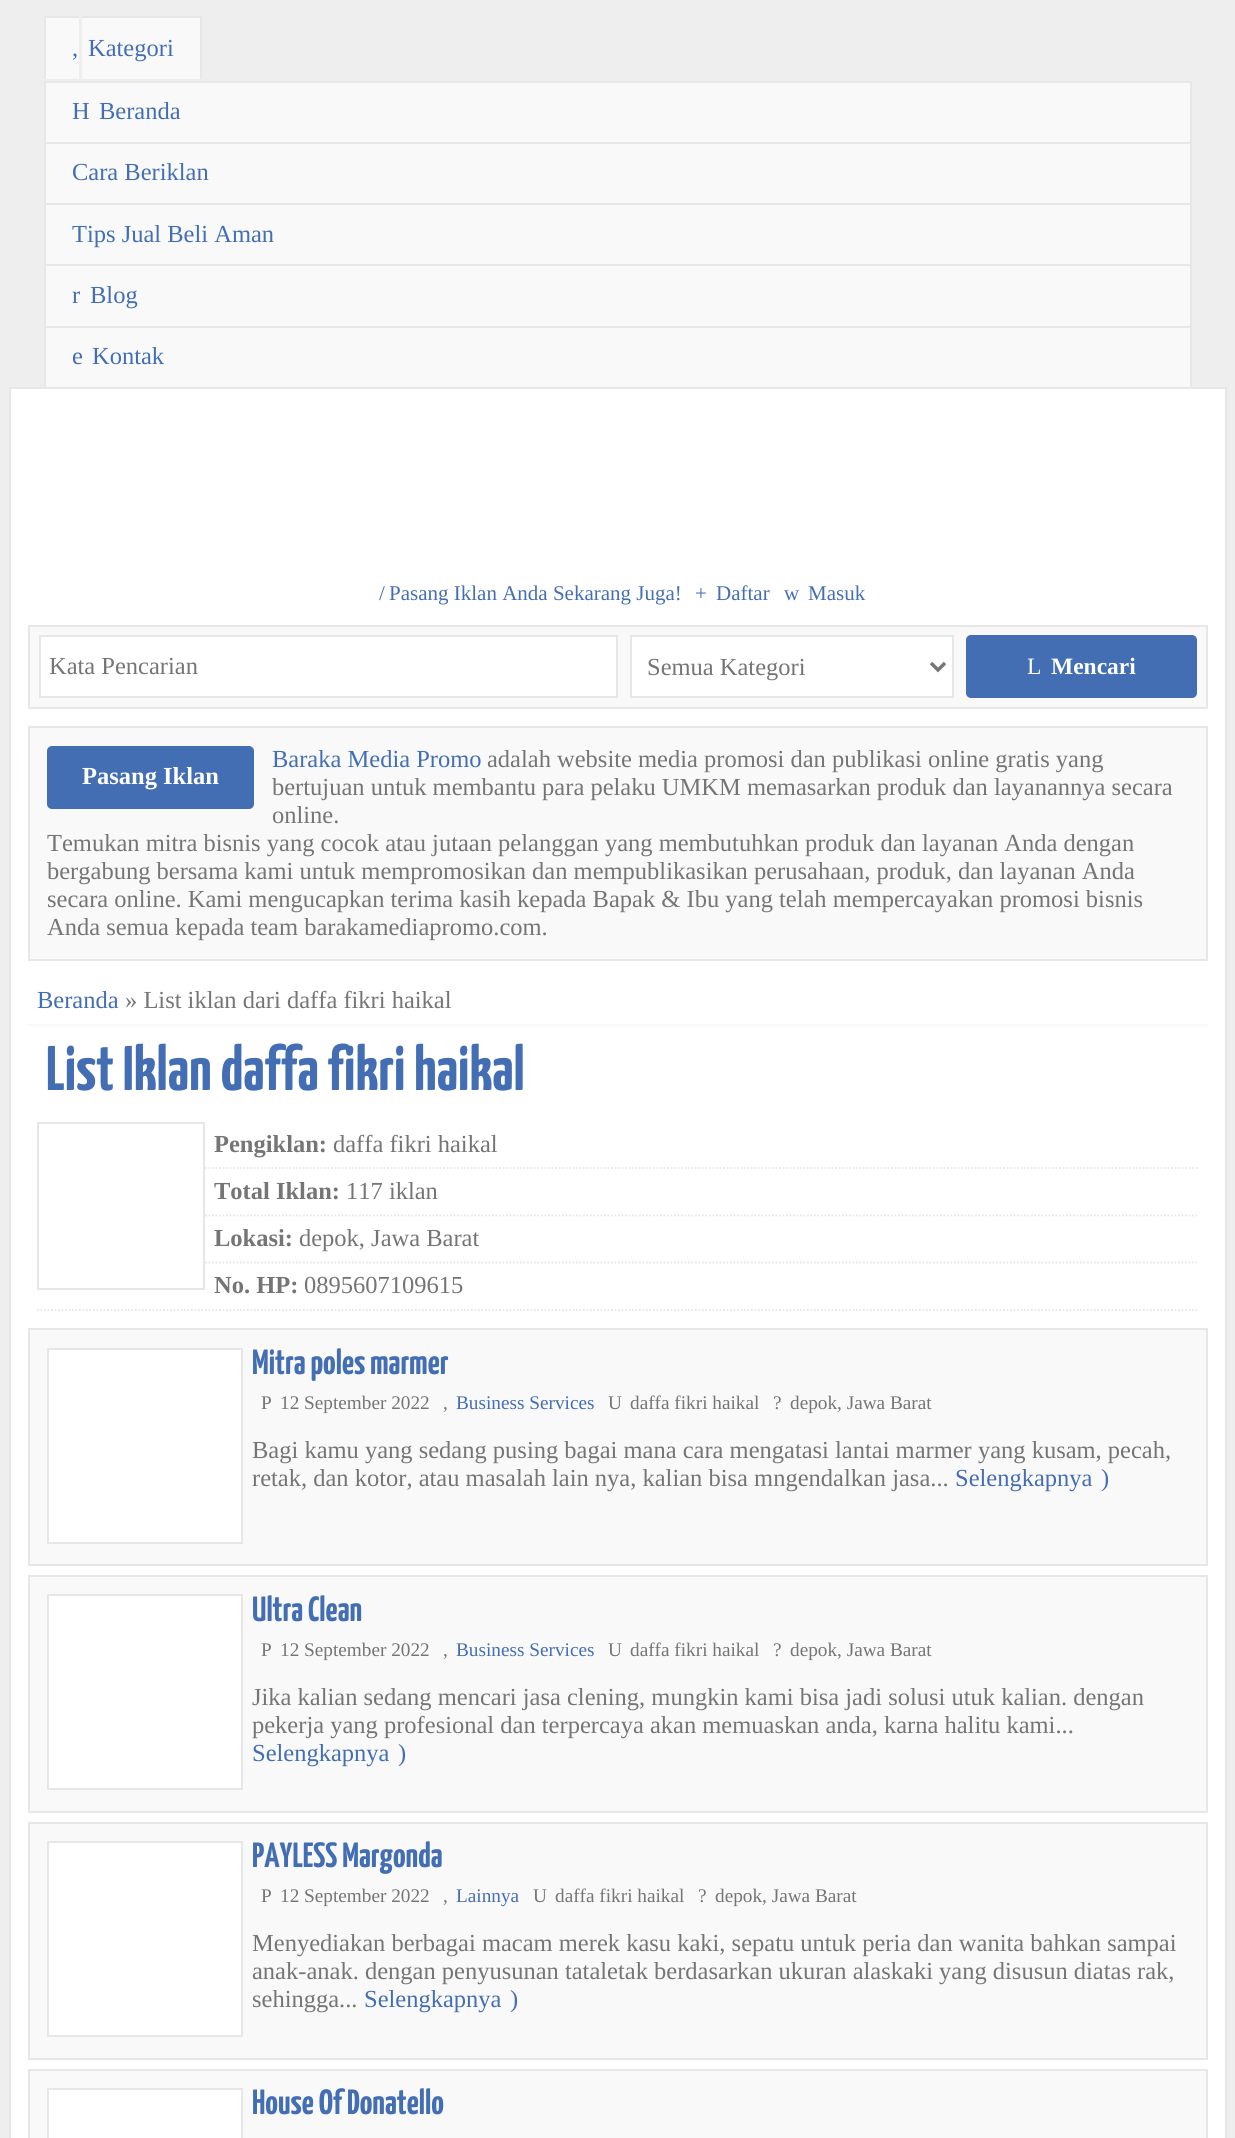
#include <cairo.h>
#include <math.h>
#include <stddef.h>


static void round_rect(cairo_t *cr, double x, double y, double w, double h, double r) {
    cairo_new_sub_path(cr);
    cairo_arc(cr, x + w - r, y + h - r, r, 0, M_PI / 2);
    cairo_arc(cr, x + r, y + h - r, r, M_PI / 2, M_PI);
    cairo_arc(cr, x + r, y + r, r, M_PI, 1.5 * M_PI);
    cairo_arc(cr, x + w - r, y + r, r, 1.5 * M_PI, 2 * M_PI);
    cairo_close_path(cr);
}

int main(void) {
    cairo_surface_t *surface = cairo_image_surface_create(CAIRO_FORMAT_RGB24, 1235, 2138);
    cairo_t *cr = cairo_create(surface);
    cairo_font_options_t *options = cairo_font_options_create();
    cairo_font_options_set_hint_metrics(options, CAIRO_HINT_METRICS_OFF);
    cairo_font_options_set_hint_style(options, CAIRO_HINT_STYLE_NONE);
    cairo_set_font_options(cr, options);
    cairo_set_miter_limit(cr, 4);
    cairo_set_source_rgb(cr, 0.933, 0.933, 0.933);
    cairo_paint(cr);
    cairo_set_source_rgb(cr, 0.976, 0.976, 0.976);
    cairo_rectangle(cr, 46, 18, 33, 61);
    cairo_fill(cr);
    cairo_select_font_face(cr, "Liberation Serif", CAIRO_FONT_SLANT_NORMAL, CAIRO_FONT_WEIGHT_NORMAL);
    cairo_set_font_size(cr, 24.5);
    cairo_set_source_rgb(cr, 0.263, 0.431, 0.702);
    cairo_move_to(cr, 72, 56);
    cairo_show_text(cr, ",");
    cairo_set_source_rgb(cr, 0.906, 0.906, 0.906);
    cairo_rectangle(cr, 44, 16, 35, 2);
    cairo_fill(cr);
    cairo_rectangle(cr, 44, 16, 2, 63);
    cairo_fill(cr);
    cairo_set_source_rgb(cr, 0.976, 0.976, 0.976);
    cairo_rectangle(cr, 82, 18, 118, 61);
    cairo_fill(cr);
    cairo_set_source_rgb(cr, 0.263, 0.431, 0.702);
    cairo_move_to(cr, 88, 56);
    cairo_show_text(cr, "Kategori");
    cairo_set_source_rgb(cr, 0.906, 0.906, 0.906);
    cairo_rectangle(cr, 82, 16, 119, 2);
    cairo_fill(cr);
    cairo_rectangle(cr, 200, 16, 2, 63);
    cairo_fill(cr);
    cairo_set_source_rgb(cr, 0.976, 0.976, 0.976);
    cairo_rectangle(cr, 46, 83, 1144, 59);
    cairo_fill(cr);
    cairo_set_source_rgb(cr, 0.906, 0.906, 0.906);
    cairo_rectangle(cr, 44, 81, 1148, 2);
    cairo_fill(cr);
    cairo_rectangle(cr, 1190, 81, 2, 61);
    cairo_fill(cr);
    cairo_rectangle(cr, 44, 81, 2, 61);
    cairo_fill(cr);
    cairo_set_source_rgb(cr, 0.263, 0.431, 0.702);
    cairo_move_to(cr, 72, 119);
    cairo_show_text(cr, "H");
    cairo_move_to(cr, 99, 119);
    cairo_show_text(cr, "Beranda");
    cairo_set_source_rgb(cr, 0.976, 0.976, 0.976);
    cairo_rectangle(cr, 46, 144, 1144, 59);
    cairo_fill(cr);
    cairo_set_source_rgb(cr, 0.906, 0.906, 0.906);
    cairo_rectangle(cr, 44, 142, 1148, 2);
    cairo_fill(cr);
    cairo_rectangle(cr, 1190, 142, 2, 61);
    cairo_fill(cr);
    cairo_rectangle(cr, 44, 142, 2, 61);
    cairo_fill(cr);
    cairo_set_source_rgb(cr, 0.263, 0.431, 0.702);
    cairo_move_to(cr, 72, 180);
    cairo_show_text(cr, "Cara Beriklan");
    cairo_set_source_rgb(cr, 0.976, 0.976, 0.976);
    cairo_rectangle(cr, 46, 205, 1144, 59);
    cairo_fill(cr);
    cairo_set_source_rgb(cr, 0.906, 0.906, 0.906);
    cairo_rectangle(cr, 44, 203, 1148, 2);
    cairo_fill(cr);
    cairo_rectangle(cr, 1190, 203, 2, 61);
    cairo_fill(cr);
    cairo_rectangle(cr, 44, 203, 2, 61);
    cairo_fill(cr);
    cairo_set_source_rgb(cr, 0.263, 0.431, 0.702);
    cairo_move_to(cr, 72, 242);
    cairo_show_text(cr, "Tips Jual Beli Aman");
    cairo_set_source_rgb(cr, 0.976, 0.976, 0.976);
    cairo_rectangle(cr, 46, 266, 1144, 60);
    cairo_fill(cr);
    cairo_set_source_rgb(cr, 0.906, 0.906, 0.906);
    cairo_rectangle(cr, 44, 264, 1148, 2);
    cairo_fill(cr);
    cairo_rectangle(cr, 1190, 264, 2, 62);
    cairo_fill(cr);
    cairo_rectangle(cr, 44, 264, 2, 62);
    cairo_fill(cr);
    cairo_set_source_rgb(cr, 0.263, 0.431, 0.702);
    cairo_move_to(cr, 72, 303);
    cairo_show_text(cr, "r");
    cairo_move_to(cr, 90, 303);
    cairo_show_text(cr, "Blog");
    cairo_set_source_rgb(cr, 0.976, 0.976, 0.976);
    cairo_rectangle(cr, 46, 328, 1144, 59);
    cairo_fill(cr);
    cairo_set_source_rgb(cr, 0.906, 0.906, 0.906);
    cairo_rectangle(cr, 44, 326, 1148, 2);
    cairo_fill(cr);
    cairo_rectangle(cr, 1190, 326, 2, 61);
    cairo_fill(cr);
    cairo_rectangle(cr, 44, 326, 2, 61);
    cairo_fill(cr);
    cairo_set_source_rgb(cr, 0.263, 0.431, 0.702);
    cairo_move_to(cr, 72, 364);
    cairo_show_text(cr, "e");
    cairo_move_to(cr, 92, 364);
    cairo_show_text(cr, "Kontak");
    cairo_set_source_rgb(cr, 1, 1, 1);
    cairo_rectangle(cr, 11, 389, 1214, 1749);
    cairo_fill(cr);
    cairo_set_source_rgb(cr, 0.906, 0.906, 0.906);
    cairo_rectangle(cr, 9, 387, 1218, 2);
    cairo_fill(cr);
    cairo_rectangle(cr, 1225, 387, 2, 1751);
    cairo_fill(cr);
    cairo_rectangle(cr, 9, 387, 2, 1751);
    cairo_fill(cr);
    cairo_set_font_size(cr, 21);
    cairo_set_source_rgb(cr, 0.263, 0.431, 0.702);
    cairo_move_to(cr, 379, 600);
    cairo_show_text(cr, "/");
    cairo_move_to(cr, 389, 600);
    cairo_show_text(cr, "Pasang Iklan Anda Sekarang Juga!");
    cairo_move_to(cr, 695, 600);
    cairo_show_text(cr, "+");
    cairo_move_to(cr, 716, 600);
    cairo_show_text(cr, "Daftar");
    cairo_move_to(cr, 784, 600);
    cairo_show_text(cr, "w");
    cairo_move_to(cr, 808, 600);
    cairo_show_text(cr, "Masuk");
    cairo_set_source_rgb(cr, 0.976, 0.976, 0.976);
    cairo_rectangle(cr, 29, 626, 1178, 82);
    cairo_fill_preserve(cr);
    cairo_set_source_rgb(cr, 0.906, 0.906, 0.906);
    cairo_stroke(cr);
    cairo_set_source_rgb(cr, 1, 1, 1);
    cairo_rectangle(cr, 40, 636, 577, 61);
    cairo_fill_preserve(cr);
    cairo_set_source_rgb(cr, 0.906, 0.906, 0.906);
    cairo_stroke(cr);
    cairo_set_font_size(cr, 24.5);
    cairo_set_source_rgb(cr, 0.459, 0.459, 0.459);
    cairo_move_to(cr, 49, 674);
    cairo_show_text(cr, "Kata Pencarian");
    cairo_set_source_rgb(cr, 1, 1, 1);
    cairo_rectangle(cr, 631, 636, 322, 61);
    cairo_fill_preserve(cr);
    cairo_set_source_rgb(cr, 0.906, 0.906, 0.906);
    cairo_stroke(cr);
    cairo_new_path(cr);
    cairo_move_to(cr, 931, 663);
    cairo_line_to(cr, 938, 670);
    cairo_line_to(cr, 945, 663);
    cairo_set_source_rgb(cr, 0.467, 0.467, 0.467);
    cairo_set_line_width(cr, 3.5);
    cairo_stroke(cr);
    cairo_set_source_rgb(cr, 0.459, 0.459, 0.459);
    cairo_move_to(cr, 647, 675);
    cairo_show_text(cr, "Semua Kategori");
    cairo_set_source_rgb(cr, 0.263, 0.431, 0.702);
    round_rect(cr, 966, 635, 231, 63, 5);
    cairo_fill(cr);
    cairo_set_font_size(cr, 23.5);
    cairo_set_source_rgb(cr, 1, 1, 1);
    cairo_move_to(cr, 1027, 674);
    cairo_show_text(cr, "L");
    cairo_select_font_face(cr, "Liberation Serif", CAIRO_FONT_SLANT_NORMAL, CAIRO_FONT_WEIGHT_BOLD);
    cairo_move_to(cr, 1051, 674);
    cairo_show_text(cr, "Mencari");
    cairo_set_source_rgb(cr, 0.976, 0.976, 0.976);
    cairo_rectangle(cr, 29, 727, 1178, 233);
    cairo_fill_preserve(cr);
    cairo_set_source_rgb(cr, 0.906, 0.906, 0.906);
    cairo_set_line_width(cr, 2);
    cairo_stroke(cr);
    cairo_select_font_face(cr, "Liberation Serif", CAIRO_FONT_SLANT_NORMAL, CAIRO_FONT_WEIGHT_NORMAL);
    cairo_set_font_size(cr, 24.5);
    cairo_set_source_rgb(cr, 0.263, 0.431, 0.702);
    cairo_move_to(cr, 272, 767);
    cairo_show_text(cr, "Baraka Media Promo");
    cairo_set_source_rgb(cr, 0.459, 0.459, 0.459);
    cairo_move_to(cr, 487, 767);
    cairo_show_text(cr, "adalah website media promosi dan publikasi online gratis yang");
    cairo_set_source_rgb(cr, 0.263, 0.431, 0.702);
    round_rect(cr, 47, 746, 207, 63, 5);
    cairo_fill(cr);
    cairo_select_font_face(cr, "Liberation Serif", CAIRO_FONT_SLANT_NORMAL, CAIRO_FONT_WEIGHT_BOLD);
    cairo_set_source_rgb(cr, 1, 1, 1);
    cairo_move_to(cr, 82, 784);
    cairo_show_text(cr, "Pasang Iklan");
    cairo_select_font_face(cr, "Liberation Serif", CAIRO_FONT_SLANT_NORMAL, CAIRO_FONT_WEIGHT_NORMAL);
    cairo_set_source_rgb(cr, 0.459, 0.459, 0.459);
    cairo_move_to(cr, 272, 795);
    cairo_show_text(cr, "bertujuan untuk membantu para pelaku UMKM memasarkan produk dan layanannya secara");
    cairo_move_to(cr, 272, 823);
    cairo_show_text(cr, "online.");
    cairo_move_to(cr, 47, 851);
    cairo_show_text(cr, "Temukan mitra bisnis yang cocok atau jutaan pelanggan yang membutuhkan produk dan layanan Anda dengan");
    cairo_move_to(cr, 47, 879);
    cairo_show_text(cr, "bergabung bersama kami untuk mempromosikan dan mempublikasikan perusahaan, produk, dan layanan Anda");
    cairo_move_to(cr, 47, 907);
    cairo_show_text(cr, "secara online. Kami mengucapkan terima kasih kepada Bapak & Ibu yang telah mempercayakan promosi bisnis");
    cairo_move_to(cr, 47, 935);
    cairo_show_text(cr, "Anda semua kepada team barakamediapromo.com.");
    cairo_set_source_rgb(cr, 0.976, 0.976, 0.976);
    cairo_rectangle(cr, 28, 1024, 1180, 2);
    cairo_fill(cr);
    cairo_set_source_rgb(cr, 0.263, 0.431, 0.702);
    cairo_move_to(cr, 37, 1008);
    cairo_show_text(cr, "Beranda");
    cairo_set_source_rgb(cr, 0.459, 0.459, 0.459);
    cairo_move_to(cr, 125, 1008);
    cairo_show_text(cr, "» List iklan dari daffa fikri haikal");
    cairo_select_font_face(cr, "Yanone Kaffeesatz", CAIRO_FONT_SLANT_NORMAL, CAIRO_FONT_WEIGHT_BOLD);
    cairo_set_font_size(cr, 63);
    cairo_set_source_rgb(cr, 0.263, 0.431, 0.702);
    cairo_move_to(cr, 46, 1090);
    cairo_show_text(cr, "List Iklan daffa fikri haikal");
    cairo_new_path(cr);
    cairo_move_to(cr, 37, 1168);
    cairo_line_to(cr, 1199, 1168);
    cairo_set_source_rgb(cr, 0.906, 0.906, 0.906);
    cairo_set_line_width(cr, 1.8);
    cairo_set_dash(cr, (double[]){1.75, 1.75}, 2, 0);
    cairo_stroke(cr);
    cairo_new_path(cr);
    cairo_move_to(cr, 37, 1215.5);
    cairo_line_to(cr, 1199, 1215.5);
    cairo_stroke(cr);
    cairo_new_path(cr);
    cairo_move_to(cr, 37, 1262.5);
    cairo_line_to(cr, 1199, 1262.5);
    cairo_stroke(cr);
    cairo_set_source_rgb(cr, 1, 1, 1);
    cairo_rectangle(cr, 40, 1167, 163, 97);
    cairo_fill(cr);
    cairo_rectangle(cr, 38, 1123, 166, 166);
    cairo_set_source_rgb(cr, 0.906, 0.906, 0.906);
    cairo_set_line_width(cr, 2);
    cairo_set_dash(cr, NULL, 0, 0);
    cairo_stroke(cr);
    cairo_select_font_face(cr, "Liberation Serif", CAIRO_FONT_SLANT_NORMAL, CAIRO_FONT_WEIGHT_BOLD);
    cairo_set_font_size(cr, 24.5);
    cairo_set_source_rgb(cr, 0.459, 0.459, 0.459);
    cairo_move_to(cr, 214, 1152);
    cairo_show_text(cr, "Pengiklan:");
    cairo_select_font_face(cr, "Liberation Serif", CAIRO_FONT_SLANT_NORMAL, CAIRO_FONT_WEIGHT_NORMAL);
    cairo_move_to(cr, 333, 1152);
    cairo_show_text(cr, "daffa fikri haikal");
    cairo_select_font_face(cr, "Liberation Serif", CAIRO_FONT_SLANT_NORMAL, CAIRO_FONT_WEIGHT_BOLD);
    cairo_move_to(cr, 214, 1199);
    cairo_show_text(cr, "Total Iklan:");
    cairo_select_font_face(cr, "Liberation Serif", CAIRO_FONT_SLANT_NORMAL, CAIRO_FONT_WEIGHT_NORMAL);
    cairo_move_to(cr, 346, 1199);
    cairo_show_text(cr, "117 iklan");
    cairo_select_font_face(cr, "Liberation Serif", CAIRO_FONT_SLANT_NORMAL, CAIRO_FONT_WEIGHT_BOLD);
    cairo_move_to(cr, 214, 1246);
    cairo_show_text(cr, "Lokasi:");
    cairo_select_font_face(cr, "Liberation Serif", CAIRO_FONT_SLANT_NORMAL, CAIRO_FONT_WEIGHT_NORMAL);
    cairo_move_to(cr, 299, 1246);
    cairo_show_text(cr, "depok, Jawa Barat");
    cairo_new_path(cr);
    cairo_move_to(cr, 37, 1310);
    cairo_line_to(cr, 1199, 1310);
    cairo_set_source_rgb(cr, 0.906, 0.906, 0.906);
    cairo_set_line_width(cr, 1.8);
    cairo_set_dash(cr, (double[]){1.75, 1.75}, 2, 0);
    cairo_stroke(cr);
    cairo_select_font_face(cr, "Liberation Serif", CAIRO_FONT_SLANT_NORMAL, CAIRO_FONT_WEIGHT_BOLD);
    cairo_set_source_rgb(cr, 0.459, 0.459, 0.459);
    cairo_move_to(cr, 214, 1293);
    cairo_show_text(cr, "No. HP:");
    cairo_select_font_face(cr, "Liberation Serif", CAIRO_FONT_SLANT_NORMAL, CAIRO_FONT_WEIGHT_NORMAL);
    cairo_move_to(cr, 304, 1293);
    cairo_show_text(cr, "0895607109615");
    cairo_set_source_rgb(cr, 0.976, 0.976, 0.976);
    cairo_rectangle(cr, 29, 1329, 1178, 236);
    cairo_fill_preserve(cr);
    cairo_set_source_rgb(cr, 0.906, 0.906, 0.906);
    cairo_set_line_width(cr, 2);
    cairo_set_dash(cr, NULL, 0, 0);
    cairo_stroke(cr);
    cairo_set_source_rgb(cr, 1, 1, 1);
    cairo_rectangle(cr, 48, 1349, 194, 194);
    cairo_fill_preserve(cr);
    cairo_set_source_rgb(cr, 0.906, 0.906, 0.906);
    cairo_stroke(cr);
    cairo_select_font_face(cr, "Yanone Kaffeesatz", CAIRO_FONT_SLANT_NORMAL, CAIRO_FONT_WEIGHT_BOLD);
    cairo_set_font_size(cr, 35);
    cairo_set_source_rgb(cr, 0.263, 0.431, 0.702);
    cairo_move_to(cr, 252, 1374);
    cairo_show_text(cr, "Mitra poles marmer");
    cairo_select_font_face(cr, "Liberation Serif", CAIRO_FONT_SLANT_NORMAL, CAIRO_FONT_WEIGHT_NORMAL);
    cairo_set_font_size(cr, 19.25);
    cairo_set_source_rgb(cr, 0.459, 0.459, 0.459);
    cairo_move_to(cr, 261, 1409);
    cairo_show_text(cr, "P");
    cairo_move_to(cr, 280, 1409);
    cairo_show_text(cr, "12 September 2022");
    cairo_move_to(cr, 443, 1409);
    cairo_show_text(cr, ",");
    cairo_set_source_rgb(cr, 0.263, 0.431, 0.702);
    cairo_move_to(cr, 456, 1409);
    cairo_show_text(cr, "Business Services");
    cairo_set_source_rgb(cr, 0.459, 0.459, 0.459);
    cairo_move_to(cr, 608, 1409);
    cairo_show_text(cr, "U");
    cairo_move_to(cr, 630, 1409);
    cairo_show_text(cr, "daffa fikri haikal");
    cairo_move_to(cr, 773, 1409);
    cairo_show_text(cr, "?");
    cairo_move_to(cr, 790, 1409);
    cairo_show_text(cr, "depok, Jawa Barat");
    cairo_set_font_size(cr, 24.5);
    cairo_move_to(cr, 252, 1458);
    cairo_show_text(cr, "Bagi kamu yang sedang pusing bagai mana cara mengatasi lantai marmer yang kusam, pecah,");
    cairo_move_to(cr, 252, 1486);
    cairo_show_text(cr, "retak, dan kotor, atau masalah lain nya, kalian bisa mngendalkan jasa...");
    cairo_set_source_rgb(cr, 0.263, 0.431, 0.702);
    cairo_move_to(cr, 955, 1486);
    cairo_show_text(cr, "Selengkapnya");
    cairo_move_to(cr, 1101, 1486);
    cairo_show_text(cr, ")");
    cairo_set_source_rgb(cr, 0.976, 0.976, 0.976);
    cairo_rectangle(cr, 29, 1576, 1178, 236);
    cairo_fill_preserve(cr);
    cairo_set_source_rgb(cr, 0.906, 0.906, 0.906);
    cairo_stroke(cr);
    cairo_set_source_rgb(cr, 1, 1, 1);
    cairo_rectangle(cr, 48, 1595, 194, 194);
    cairo_fill_preserve(cr);
    cairo_set_source_rgb(cr, 0.906, 0.906, 0.906);
    cairo_stroke(cr);
    cairo_select_font_face(cr, "Yanone Kaffeesatz", CAIRO_FONT_SLANT_NORMAL, CAIRO_FONT_WEIGHT_BOLD);
    cairo_set_font_size(cr, 35);
    cairo_set_source_rgb(cr, 0.263, 0.431, 0.702);
    cairo_move_to(cr, 252, 1621);
    cairo_show_text(cr, "Ultra Clean");
    cairo_select_font_face(cr, "Liberation Serif", CAIRO_FONT_SLANT_NORMAL, CAIRO_FONT_WEIGHT_NORMAL);
    cairo_set_font_size(cr, 19.25);
    cairo_set_source_rgb(cr, 0.459, 0.459, 0.459);
    cairo_move_to(cr, 261, 1656);
    cairo_show_text(cr, "P");
    cairo_move_to(cr, 280, 1656);
    cairo_show_text(cr, "12 September 2022");
    cairo_move_to(cr, 443, 1656);
    cairo_show_text(cr, ",");
    cairo_set_source_rgb(cr, 0.263, 0.431, 0.702);
    cairo_move_to(cr, 456, 1656);
    cairo_show_text(cr, "Business Services");
    cairo_set_source_rgb(cr, 0.459, 0.459, 0.459);
    cairo_move_to(cr, 608, 1656);
    cairo_show_text(cr, "U");
    cairo_move_to(cr, 630, 1656);
    cairo_show_text(cr, "daffa fikri haikal");
    cairo_move_to(cr, 773, 1656);
    cairo_show_text(cr, "?");
    cairo_move_to(cr, 790, 1656);
    cairo_show_text(cr, "depok, Jawa Barat");
    cairo_set_font_size(cr, 24.5);
    cairo_move_to(cr, 252, 1705);
    cairo_show_text(cr, "Jika kalian sedang mencari jasa clening, mungkin kami bisa jadi solusi utuk kalian. dengan");
    cairo_move_to(cr, 252, 1733);
    cairo_show_text(cr, "pekerja yang profesional dan terpercaya akan memuaskan anda, karna halitu kami...");
    cairo_set_source_rgb(cr, 0.263, 0.431, 0.702);
    cairo_move_to(cr, 252, 1761);
    cairo_show_text(cr, "Selengkapnya");
    cairo_move_to(cr, 398, 1761);
    cairo_show_text(cr, ")");
    cairo_set_source_rgb(cr, 0.976, 0.976, 0.976);
    cairo_rectangle(cr, 29, 1823, 1178, 236);
    cairo_fill_preserve(cr);
    cairo_set_source_rgb(cr, 0.906, 0.906, 0.906);
    cairo_stroke(cr);
    cairo_set_source_rgb(cr, 1, 1, 1);
    cairo_rectangle(cr, 48, 1842, 194, 194);
    cairo_fill_preserve(cr);
    cairo_set_source_rgb(cr, 0.906, 0.906, 0.906);
    cairo_stroke(cr);
    cairo_select_font_face(cr, "Yanone Kaffeesatz", CAIRO_FONT_SLANT_NORMAL, CAIRO_FONT_WEIGHT_BOLD);
    cairo_set_font_size(cr, 35);
    cairo_set_source_rgb(cr, 0.263, 0.431, 0.702);
    cairo_move_to(cr, 252, 1867);
    cairo_show_text(cr, "PAYLESS Margonda");
    cairo_select_font_face(cr, "Liberation Serif", CAIRO_FONT_SLANT_NORMAL, CAIRO_FONT_WEIGHT_NORMAL);
    cairo_set_font_size(cr, 19.25);
    cairo_set_source_rgb(cr, 0.459, 0.459, 0.459);
    cairo_move_to(cr, 261, 1902);
    cairo_show_text(cr, "P");
    cairo_move_to(cr, 280, 1902);
    cairo_show_text(cr, "12 September 2022");
    cairo_move_to(cr, 443, 1902);
    cairo_show_text(cr, ",");
    cairo_set_source_rgb(cr, 0.263, 0.431, 0.702);
    cairo_move_to(cr, 456, 1902);
    cairo_show_text(cr, "Lainnya");
    cairo_set_source_rgb(cr, 0.459, 0.459, 0.459);
    cairo_move_to(cr, 533, 1902);
    cairo_show_text(cr, "U");
    cairo_move_to(cr, 555, 1902);
    cairo_show_text(cr, "daffa fikri haikal");
    cairo_move_to(cr, 698, 1902);
    cairo_show_text(cr, "?");
    cairo_move_to(cr, 715, 1902);
    cairo_show_text(cr, "depok, Jawa Barat");
    cairo_set_font_size(cr, 24.5);
    cairo_move_to(cr, 252, 1951);
    cairo_show_text(cr, "Menyediakan berbagai macam merek kasu kaki, sepatu untuk peria dan wanita bahkan sampai");
    cairo_move_to(cr, 252, 1979);
    cairo_show_text(cr, "anak-anak. dengan penyusunan tataletak berdasarkan ukuran alaskaki yang disusun diatas rak,");
    cairo_move_to(cr, 252, 2007);
    cairo_show_text(cr, "sehingga...");
    cairo_set_source_rgb(cr, 0.263, 0.431, 0.702);
    cairo_move_to(cr, 364, 2007);
    cairo_show_text(cr, "Selengkapnya");
    cairo_move_to(cr, 510, 2007);
    cairo_show_text(cr, ")");
    cairo_set_source_rgb(cr, 0.976, 0.976, 0.976);
    cairo_rectangle(cr, 29, 2070, 1178, 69);
    cairo_fill_preserve(cr);
    cairo_set_source_rgb(cr, 0.906, 0.906, 0.906);
    cairo_stroke(cr);
    cairo_set_source_rgb(cr, 1, 1, 1);
    cairo_rectangle(cr, 48, 2089, 194, 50);
    cairo_fill_preserve(cr);
    cairo_set_source_rgb(cr, 0.906, 0.906, 0.906);
    cairo_stroke(cr);
    cairo_select_font_face(cr, "Yanone Kaffeesatz", CAIRO_FONT_SLANT_NORMAL, CAIRO_FONT_WEIGHT_BOLD);
    cairo_set_font_size(cr, 35);
    cairo_set_source_rgb(cr, 0.263, 0.431, 0.702);
    cairo_move_to(cr, 252, 2114);
    cairo_show_text(cr, "House Of Donatello");
    cairo_surface_write_to_png(surface, "page.png");
    cairo_font_options_destroy(options);
    cairo_destroy(cr);
    cairo_surface_destroy(surface);
    return 0;
}
